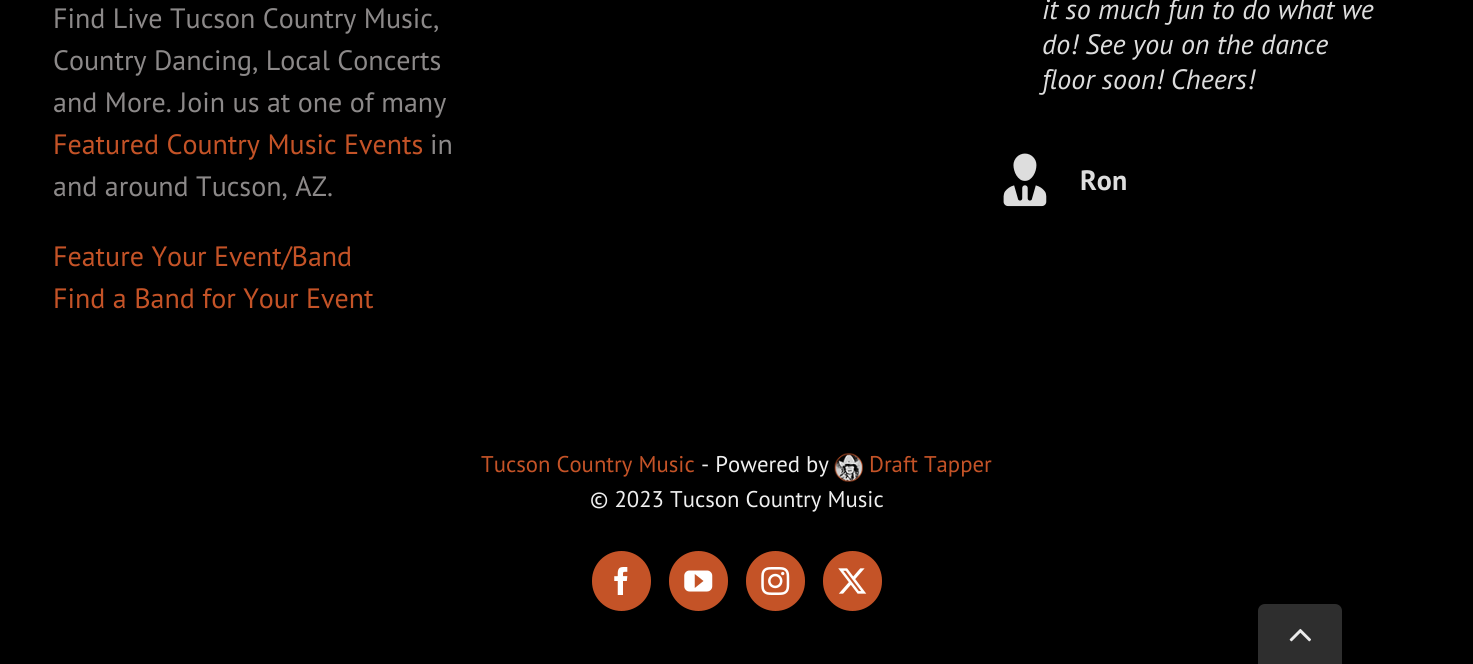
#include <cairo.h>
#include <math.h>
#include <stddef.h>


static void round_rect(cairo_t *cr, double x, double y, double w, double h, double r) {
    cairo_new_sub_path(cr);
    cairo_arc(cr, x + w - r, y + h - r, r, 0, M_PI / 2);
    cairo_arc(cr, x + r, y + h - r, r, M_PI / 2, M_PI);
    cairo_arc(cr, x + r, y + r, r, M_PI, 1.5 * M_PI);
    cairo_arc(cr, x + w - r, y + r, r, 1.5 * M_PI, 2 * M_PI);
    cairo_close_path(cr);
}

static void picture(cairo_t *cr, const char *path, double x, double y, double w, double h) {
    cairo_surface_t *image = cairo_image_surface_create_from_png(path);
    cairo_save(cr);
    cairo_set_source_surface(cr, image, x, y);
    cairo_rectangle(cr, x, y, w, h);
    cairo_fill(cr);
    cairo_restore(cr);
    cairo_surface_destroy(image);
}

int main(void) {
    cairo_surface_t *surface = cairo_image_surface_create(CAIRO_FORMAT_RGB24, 1473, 664);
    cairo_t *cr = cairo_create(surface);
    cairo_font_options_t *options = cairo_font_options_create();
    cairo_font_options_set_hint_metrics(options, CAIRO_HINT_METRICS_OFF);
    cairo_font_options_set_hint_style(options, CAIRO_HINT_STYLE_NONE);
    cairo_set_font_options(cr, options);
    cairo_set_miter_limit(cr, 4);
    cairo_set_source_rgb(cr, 0, 0, 0);
    cairo_paint(cr);
    cairo_select_font_face(cr, "PT Sans", CAIRO_FONT_SLANT_NORMAL, CAIRO_FONT_WEIGHT_NORMAL);
    cairo_set_font_size(cr, 28);
    cairo_set_source_rgb(cr, 0.549, 0.537, 0.537);
    cairo_move_to(cr, 53, 28);
    cairo_show_text(cr, "Find Live Tucson Country Music,");
    cairo_move_to(cr, 53, 70);
    cairo_show_text(cr, "Country Dancing, Local Concerts");
    cairo_move_to(cr, 53, 112);
    cairo_show_text(cr, "and More. Join us at one of many");
    cairo_set_source_rgb(cr, 0.769, 0.325, 0.153);
    cairo_move_to(cr, 53, 154);
    cairo_show_text(cr, "Featured Country Music Events");
    cairo_set_source_rgb(cr, 0.549, 0.537, 0.537);
    cairo_move_to(cr, 430, 154);
    cairo_show_text(cr, "in");
    cairo_move_to(cr, 53, 196);
    cairo_show_text(cr, "and around Tucson, AZ.");
    cairo_set_source_rgb(cr, 0.769, 0.325, 0.153);
    cairo_move_to(cr, 53, 266);
    cairo_show_text(cr, "Feature Your Event/Band");
    cairo_move_to(cr, 53, 308);
    cairo_show_text(cr, "Find a Band for Your Event");
    cairo_select_font_face(cr, "PT Sans", CAIRO_FONT_SLANT_ITALIC, CAIRO_FONT_WEIGHT_NORMAL);
    cairo_set_source_rgb(cr, 0.867, 0.867, 0.867);
    cairo_move_to(cr, 1042, 19);
    cairo_show_text(cr, "it so much fun to do what we");
    cairo_move_to(cr, 1042, 54);
    cairo_show_text(cr, "do! See you on the dance");
    cairo_move_to(cr, 1042, 89);
    cairo_show_text(cr, "floor soon! Cheers!");
    picture(cr, "img1.png", 1003, 153, 44, 54);
    cairo_select_font_face(cr, "PT Sans", CAIRO_FONT_SLANT_NORMAL, CAIRO_FONT_WEIGHT_BOLD);
    cairo_move_to(cr, 1080, 190);
    cairo_show_text(cr, "Ron");
    cairo_select_font_face(cr, "PT Sans", CAIRO_FONT_SLANT_NORMAL, CAIRO_FONT_WEIGHT_NORMAL);
    cairo_set_font_size(cr, 22.75);
    cairo_set_source_rgb(cr, 0.769, 0.325, 0.153);
    cairo_move_to(cr, 481, 472);
    cairo_show_text(cr, "Tucson Country Music");
    cairo_set_source_rgb(cr, 0.937, 0.937, 0.937);
    cairo_move_to(cr, 701, 472);
    cairo_show_text(cr, "- Powered by");
    picture(cr, "img2.png", 834, 453, 29, 29);
    cairo_set_source_rgb(cr, 0.769, 0.325, 0.153);
    cairo_move_to(cr, 869, 472);
    cairo_show_text(cr, "Draft Tapper");
    cairo_set_source_rgb(cr, 0.937, 0.937, 0.937);
    cairo_move_to(cr, 590, 507);
    cairo_show_text(cr, "© 2023 Tucson Country Music");
    cairo_set_source_rgb(cr, 0.769, 0.325, 0.153);
    round_rect(cr, 593, 552, 57, 58, 28.5);
    cairo_fill_preserve(cr);
    cairo_stroke(cr);
    picture(cr, "img3.png", 614, 567, 14, 28);
    round_rect(cr, 670, 552, 57, 58, 28.5);
    cairo_fill_preserve(cr);
    cairo_stroke(cr);
    picture(cr, "img4.png", 684, 570, 29, 22);
    round_rect(cr, 747, 552, 57, 58, 28.5);
    cairo_fill_preserve(cr);
    cairo_stroke(cr);
    picture(cr, "img5.png", 761, 567, 29, 28);
    round_rect(cr, 824, 552, 57, 58, 28.5);
    cairo_fill_preserve(cr);
    cairo_stroke(cr);
    picture(cr, "img6.png", 838, 568, 29, 26);
    cairo_set_source_rgb(cr, 0.18, 0.18, 0.18);
    cairo_new_path(cr);
    cairo_move_to(cr, 1265, 604);
    cairo_line_to(cr, 1335, 604);
    cairo_curve_to(cr, 1339, 604, 1342, 607, 1342, 611);
    cairo_line_to(cr, 1342, 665);
    cairo_line_to(cr, 1258, 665);
    cairo_line_to(cr, 1258, 611);
    cairo_curve_to(cr, 1258, 607, 1261, 604, 1265, 604);
    cairo_close_path(cr);
    cairo_fill(cr);
    picture(cr, "img7.png", 1289, 628, 22, 14);
    cairo_surface_write_to_png(surface, "page.png");
    cairo_font_options_destroy(options);
    cairo_destroy(cr);
    cairo_surface_destroy(surface);
    return 0;
}
